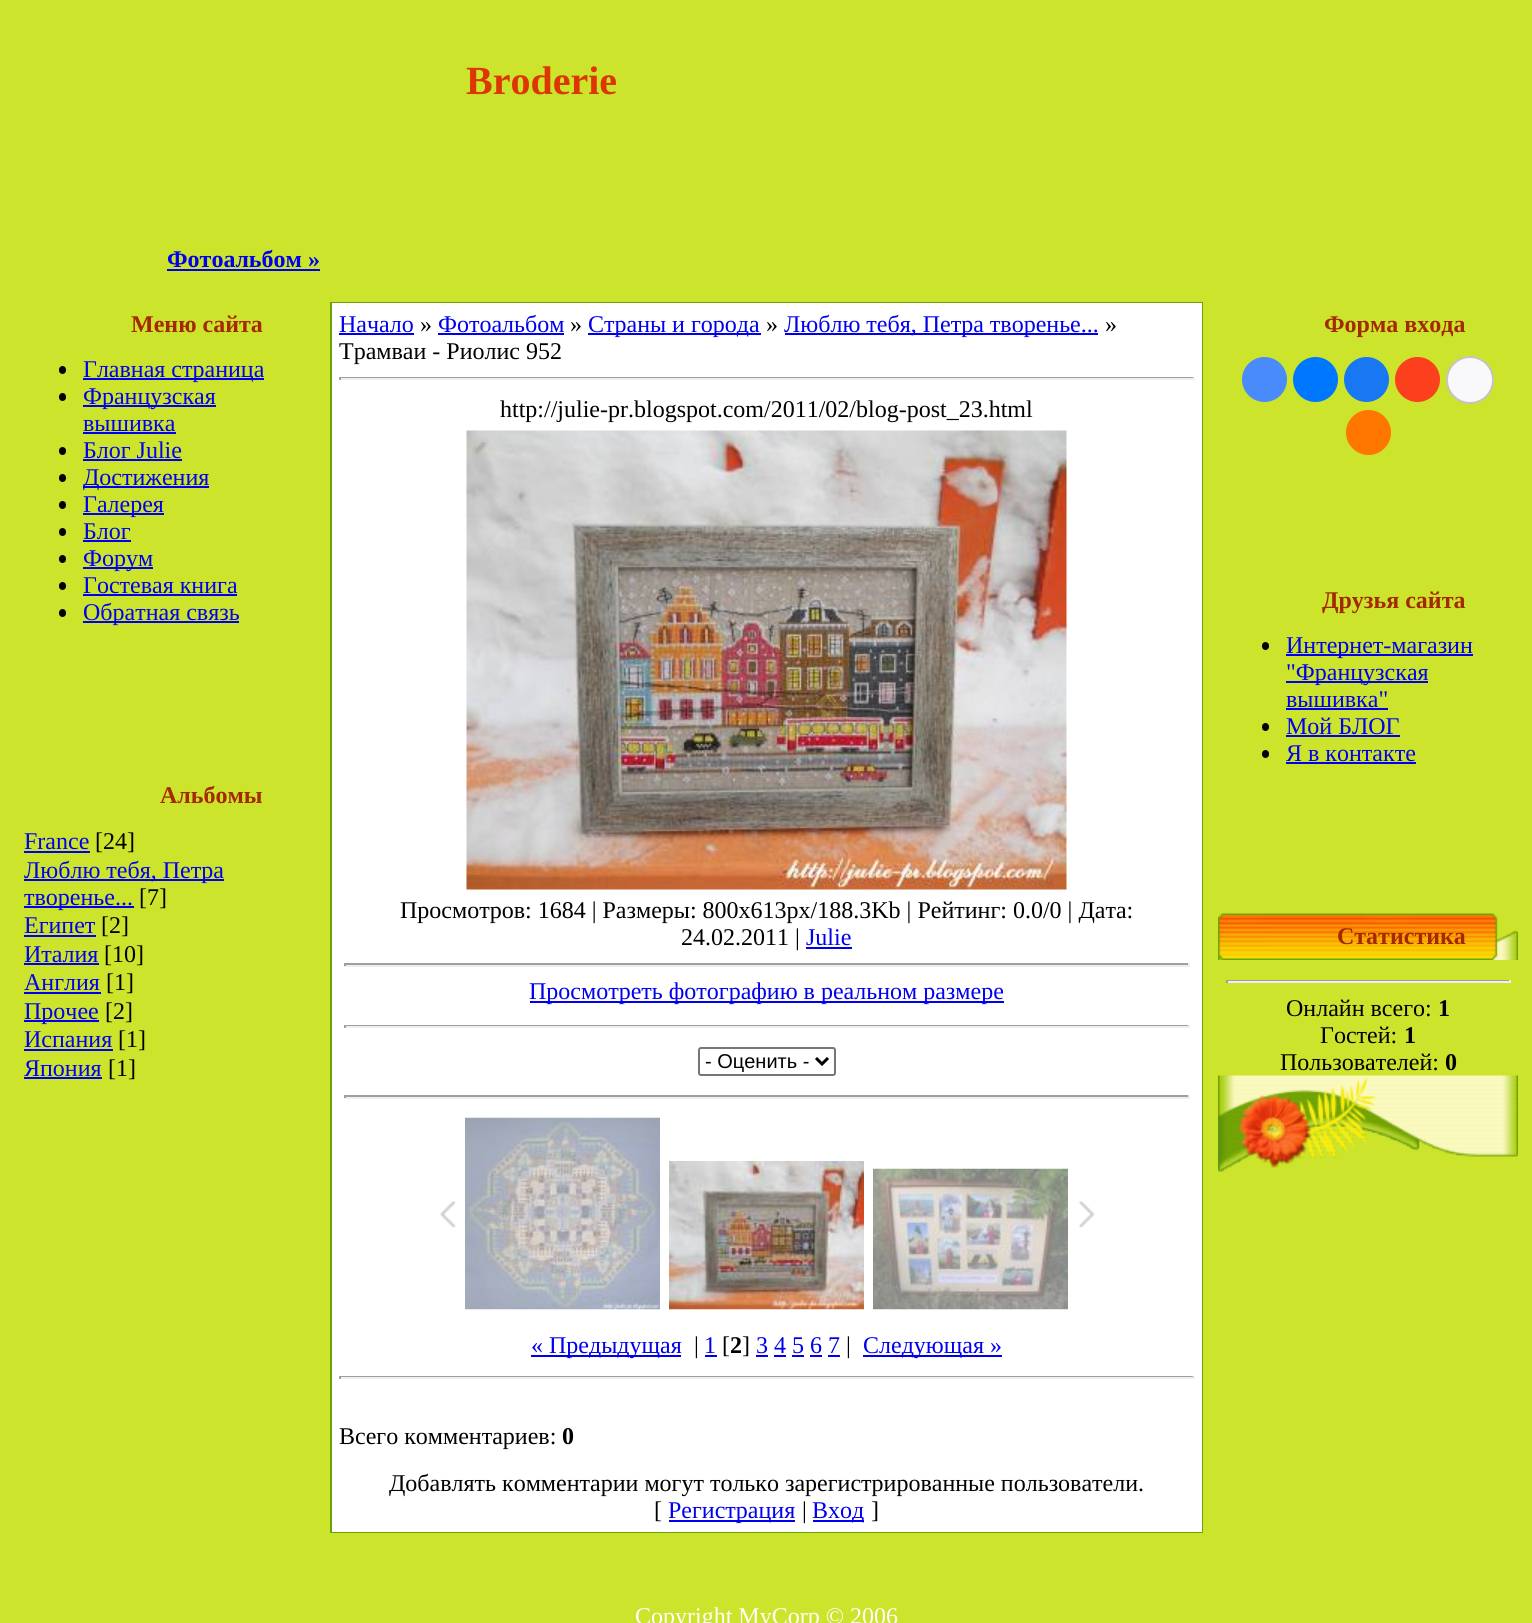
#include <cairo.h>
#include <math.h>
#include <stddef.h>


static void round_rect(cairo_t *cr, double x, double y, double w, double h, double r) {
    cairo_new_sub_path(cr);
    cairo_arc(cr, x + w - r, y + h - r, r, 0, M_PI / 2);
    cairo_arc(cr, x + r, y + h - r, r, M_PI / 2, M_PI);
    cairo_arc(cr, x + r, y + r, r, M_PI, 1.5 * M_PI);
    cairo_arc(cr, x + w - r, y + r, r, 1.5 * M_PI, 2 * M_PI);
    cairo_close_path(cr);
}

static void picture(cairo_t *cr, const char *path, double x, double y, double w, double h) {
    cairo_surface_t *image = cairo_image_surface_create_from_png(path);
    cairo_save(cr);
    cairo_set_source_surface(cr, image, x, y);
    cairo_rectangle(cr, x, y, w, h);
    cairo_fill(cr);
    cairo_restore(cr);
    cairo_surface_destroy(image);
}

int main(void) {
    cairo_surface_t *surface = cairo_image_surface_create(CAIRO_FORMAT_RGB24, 1532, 1623);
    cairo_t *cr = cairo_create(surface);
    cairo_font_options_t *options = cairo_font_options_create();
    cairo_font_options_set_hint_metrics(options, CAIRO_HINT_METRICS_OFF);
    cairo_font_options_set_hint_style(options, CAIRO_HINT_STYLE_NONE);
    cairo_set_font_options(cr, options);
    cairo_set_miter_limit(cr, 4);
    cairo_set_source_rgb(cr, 0.8, 0.894, 0.173);
    cairo_paint(cr);
    cairo_select_font_face(cr, "Liberation Serif", CAIRO_FONT_SLANT_NORMAL, CAIRO_FONT_WEIGHT_BOLD);
    cairo_set_font_size(cr, 40);
    cairo_set_source_rgb(cr, 0.863, 0.216, 0);
    cairo_move_to(cr, 466, 94);
    cairo_show_text(cr, "Broderie");
    cairo_set_font_size(cr, 24);
    cairo_set_source_rgb(cr, 0, 0, 0.933);
    cairo_move_to(cr, 167, 267);
    cairo_show_text(cr, "Фотоальбом »");
    cairo_rectangle(cr, 167, 269, 153, 2);
    cairo_fill(cr);
    cairo_set_source_rgb(cr, 0.643, 0.161, 0);
    cairo_move_to(cr, 131, 332);
    cairo_show_text(cr, "Меню сайта");
    cairo_set_source_rgb(cr, 0, 0, 0);
    round_rect(cr, 59, 366, 7, 8, 3.5);
    cairo_fill(cr);
    cairo_set_source_rgb(cr, 0, 0, 0.933);
    cairo_rectangle(cr, 83, 378, 181, 2);
    cairo_fill(cr);
    cairo_select_font_face(cr, "Liberation Serif", CAIRO_FONT_SLANT_NORMAL, CAIRO_FONT_WEIGHT_NORMAL);
    cairo_move_to(cr, 83, 377);
    cairo_show_text(cr, "Главная страница");
    cairo_set_source_rgb(cr, 0, 0, 0);
    round_rect(cr, 59, 393, 7, 8, 3.5);
    cairo_fill(cr);
    cairo_set_source_rgb(cr, 0, 0, 0.933);
    cairo_rectangle(cr, 83, 405, 133, 2);
    cairo_fill(cr);
    cairo_move_to(cr, 83, 404);
    cairo_show_text(cr, "Французская");
    cairo_move_to(cr, 83, 431);
    cairo_show_text(cr, "вышивка");
    cairo_rectangle(cr, 83, 432, 93, 2);
    cairo_fill(cr);
    cairo_set_source_rgb(cr, 0, 0, 0);
    round_rect(cr, 59, 447, 7, 8, 3.5);
    cairo_fill(cr);
    cairo_set_source_rgb(cr, 0, 0, 0.933);
    cairo_move_to(cr, 83, 458);
    cairo_show_text(cr, "Блог Julie");
    cairo_rectangle(cr, 83, 459, 99, 2);
    cairo_fill(cr);
    cairo_set_source_rgb(cr, 0, 0, 0);
    round_rect(cr, 59, 474, 7, 8, 3.5);
    cairo_fill(cr);
    cairo_set_source_rgb(cr, 0, 0, 0.933);
    cairo_rectangle(cr, 83, 486, 126, 2);
    cairo_fill(cr);
    cairo_move_to(cr, 83, 485);
    cairo_show_text(cr, "Достижения");
    cairo_set_source_rgb(cr, 0, 0, 0);
    round_rect(cr, 59, 501, 7, 8, 3.5);
    cairo_fill(cr);
    cairo_set_source_rgb(cr, 0, 0, 0.933);
    cairo_rectangle(cr, 83, 513, 81, 2);
    cairo_fill(cr);
    cairo_move_to(cr, 83, 512);
    cairo_show_text(cr, "Галерея");
    cairo_set_source_rgb(cr, 0, 0, 0);
    round_rect(cr, 59, 528, 7, 8, 3.5);
    cairo_fill(cr);
    cairo_set_source_rgb(cr, 0, 0, 0.933);
    cairo_move_to(cr, 83, 539);
    cairo_show_text(cr, "Блог");
    cairo_rectangle(cr, 83, 540, 48, 2);
    cairo_fill(cr);
    cairo_set_source_rgb(cr, 0, 0, 0);
    round_rect(cr, 59, 555, 7, 8, 3.5);
    cairo_fill(cr);
    cairo_set_source_rgb(cr, 0, 0, 0.933);
    cairo_rectangle(cr, 83, 567, 70, 2);
    cairo_fill(cr);
    cairo_move_to(cr, 83, 566);
    cairo_show_text(cr, "Форум");
    cairo_set_source_rgb(cr, 0, 0, 0);
    round_rect(cr, 59, 582, 7, 8, 3.5);
    cairo_fill(cr);
    cairo_set_source_rgb(cr, 0, 0, 0.933);
    cairo_move_to(cr, 83, 593);
    cairo_show_text(cr, "Гостевая книга");
    cairo_rectangle(cr, 83, 594, 154, 2);
    cairo_fill(cr);
    cairo_set_source_rgb(cr, 0, 0, 0);
    round_rect(cr, 59, 609, 7, 8, 3.5);
    cairo_fill(cr);
    cairo_set_source_rgb(cr, 0, 0, 0.933);
    cairo_rectangle(cr, 83, 621, 156, 2);
    cairo_fill(cr);
    cairo_move_to(cr, 83, 620);
    cairo_show_text(cr, "Обратная связь");
    cairo_select_font_face(cr, "Liberation Serif", CAIRO_FONT_SLANT_NORMAL, CAIRO_FONT_WEIGHT_BOLD);
    cairo_set_source_rgb(cr, 0.643, 0.161, 0);
    cairo_move_to(cr, 160, 803);
    cairo_show_text(cr, "Альбомы");
    cairo_select_font_face(cr, "Liberation Serif", CAIRO_FONT_SLANT_NORMAL, CAIRO_FONT_WEIGHT_NORMAL);
    cairo_set_source_rgb(cr, 0, 0, 0.933);
    cairo_move_to(cr, 24, 849);
    cairo_show_text(cr, "France");
    cairo_rectangle(cr, 24, 851, 66, 2);
    cairo_fill(cr);
    cairo_set_source_rgb(cr, 0, 0, 0);
    cairo_move_to(cr, 95, 849);
    cairo_show_text(cr, "[24]");
    cairo_set_source_rgb(cr, 0, 0, 0.933);
    cairo_rectangle(cr, 24, 879, 200, 2);
    cairo_fill(cr);
    cairo_move_to(cr, 24, 878);
    cairo_show_text(cr, "Люблю тебя, Петра");
    cairo_rectangle(cr, 24, 906, 110, 2);
    cairo_fill(cr);
    cairo_move_to(cr, 24, 905);
    cairo_show_text(cr, "творенье...");
    cairo_set_source_rgb(cr, 0, 0, 0);
    cairo_move_to(cr, 139, 905);
    cairo_show_text(cr, "[7]");
    cairo_set_source_rgb(cr, 0, 0, 0.933);
    cairo_move_to(cr, 24, 933);
    cairo_show_text(cr, "Египет");
    cairo_rectangle(cr, 24, 935, 72, 2);
    cairo_fill(cr);
    cairo_set_source_rgb(cr, 0, 0, 0);
    cairo_move_to(cr, 101, 933);
    cairo_show_text(cr, "[2]");
    cairo_set_source_rgb(cr, 0, 0, 0.933);
    cairo_move_to(cr, 24, 962);
    cairo_show_text(cr, "Италия");
    cairo_rectangle(cr, 24, 963, 75, 2);
    cairo_fill(cr);
    cairo_set_source_rgb(cr, 0, 0, 0);
    cairo_move_to(cr, 104, 962);
    cairo_show_text(cr, "[10]");
    cairo_set_source_rgb(cr, 0, 0, 0.933);
    cairo_move_to(cr, 24, 990);
    cairo_show_text(cr, "Англия");
    cairo_rectangle(cr, 24, 992, 77, 2);
    cairo_fill(cr);
    cairo_set_source_rgb(cr, 0, 0, 0);
    cairo_move_to(cr, 106, 990);
    cairo_show_text(cr, "[1]");
    cairo_set_source_rgb(cr, 0, 0, 0.933);
    cairo_rectangle(cr, 24, 1020, 75, 2);
    cairo_fill(cr);
    cairo_move_to(cr, 24, 1019);
    cairo_show_text(cr, "Прочее");
    cairo_set_source_rgb(cr, 0, 0, 0);
    cairo_move_to(cr, 105, 1019);
    cairo_show_text(cr, "[2]");
    cairo_set_source_rgb(cr, 0, 0, 0.933);
    cairo_move_to(cr, 24, 1047);
    cairo_show_text(cr, "Испания");
    cairo_rectangle(cr, 24, 1049, 89, 2);
    cairo_fill(cr);
    cairo_set_source_rgb(cr, 0, 0, 0);
    cairo_move_to(cr, 118, 1047);
    cairo_show_text(cr, "[1]");
    cairo_set_source_rgb(cr, 0, 0, 0.933);
    cairo_move_to(cr, 24, 1076);
    cairo_show_text(cr, "Япония");
    cairo_rectangle(cr, 24, 1077, 78, 2);
    cairo_fill(cr);
    cairo_set_source_rgb(cr, 0, 0, 0);
    cairo_move_to(cr, 108, 1076);
    cairo_show_text(cr, "[1]");
    cairo_rectangle(cr, 331, 303, 871, 1229);
    cairo_set_source_rgb(cr, 0.427, 0.631, 0.016);
    cairo_stroke(cr);
    cairo_set_source_rgb(cr, 1, 1, 1);
    cairo_rectangle(cr, 332, 303, 870, 1229);
    cairo_fill(cr);
    cairo_set_source_rgb(cr, 0, 0, 0.933);
    cairo_move_to(cr, 339, 332);
    cairo_show_text(cr, "Начало");
    cairo_rectangle(cr, 339, 333, 75, 2);
    cairo_fill(cr);
    cairo_set_source_rgb(cr, 0, 0, 0);
    cairo_move_to(cr, 420, 332);
    cairo_show_text(cr, "»");
    cairo_set_source_rgb(cr, 0, 0, 0.933);
    cairo_move_to(cr, 438, 332);
    cairo_show_text(cr, "Фотоальбом");
    cairo_rectangle(cr, 438, 333, 126, 2);
    cairo_fill(cr);
    cairo_set_source_rgb(cr, 0, 0, 0);
    cairo_move_to(cr, 570, 332);
    cairo_show_text(cr, "»");
    cairo_set_source_rgb(cr, 0, 0, 0.933);
    cairo_rectangle(cr, 588, 333, 173, 2);
    cairo_fill(cr);
    cairo_move_to(cr, 588, 332);
    cairo_show_text(cr, "Страны и города");
    cairo_set_source_rgb(cr, 0, 0, 0);
    cairo_move_to(cr, 766, 332);
    cairo_show_text(cr, "»");
    cairo_set_source_rgb(cr, 0, 0, 0.933);
    cairo_rectangle(cr, 785, 333, 313, 2);
    cairo_fill(cr);
    cairo_move_to(cr, 784, 332);
    cairo_show_text(cr, "Люблю тебя, Петра творенье...");
    cairo_set_source_rgb(cr, 0, 0, 0);
    cairo_move_to(cr, 1105, 332);
    cairo_show_text(cr, "»");
    cairo_move_to(cr, 339, 359);
    cairo_show_text(cr, "Трамваи - Риолис 952");
    cairo_set_source_rgb(cr, 0.624, 0.624, 0.624);
    cairo_rectangle(cr, 339, 377, 855, 1);
    cairo_fill(cr);
    cairo_set_source_rgb(cr, 0.933, 0.933, 0.933);
    cairo_rectangle(cr, 1193, 377, 2, 3);
    cairo_fill(cr);
    cairo_rectangle(cr, 339, 378, 855, 2);
    cairo_fill(cr);
    cairo_set_source_rgb(cr, 0.624, 0.624, 0.624);
    cairo_rectangle(cr, 339, 377, 2, 3);
    cairo_fill(cr);
    cairo_set_source_rgb(cr, 0, 0, 0);
    cairo_move_to(cr, 500, 417);
    cairo_show_text(cr, "http://julie-pr.blogspot.com/2011/02/blog-post_23.html");
    picture(cr, "img1.png", 466, 430, 601, 460);
    cairo_move_to(cr, 400, 918);
    cairo_show_text(cr, "Просмотров: 1684 | Размеры: 800x613px/188.3Kb | Рейтинг: 0.0/0 | Дата:");
    cairo_move_to(cr, 681, 945);
    cairo_show_text(cr, "24.02.2011 |");
    cairo_set_source_rgb(cr, 0, 0, 0.933);
    cairo_move_to(cr, 806, 945);
    cairo_show_text(cr, "Julie");
    cairo_rectangle(cr, 806, 947, 46, 2);
    cairo_fill(cr);
    cairo_set_source_rgb(cr, 0.624, 0.624, 0.624);
    cairo_rectangle(cr, 344, 963, 846, 2);
    cairo_fill(cr);
    cairo_set_source_rgb(cr, 0.933, 0.933, 0.933);
    cairo_rectangle(cr, 1188, 963, 2, 3);
    cairo_fill(cr);
    cairo_rectangle(cr, 344, 965, 846, 2);
    cairo_fill(cr);
    cairo_set_source_rgb(cr, 0.624, 0.624, 0.624);
    cairo_rectangle(cr, 344, 963, 2, 3);
    cairo_fill(cr);
    cairo_set_source_rgb(cr, 0, 0, 0.933);
    cairo_rectangle(cr, 530, 1001, 474, 2);
    cairo_fill(cr);
    cairo_move_to(cr, 529, 999);
    cairo_show_text(cr, "Просмотреть фотографию в реальном размере");
    cairo_set_source_rgb(cr, 0.624, 0.624, 0.624);
    cairo_rectangle(cr, 344, 1025, 846, 1);
    cairo_fill(cr);
    cairo_set_source_rgb(cr, 0.933, 0.933, 0.933);
    cairo_rectangle(cr, 1188, 1025, 2, 3);
    cairo_fill(cr);
    cairo_rectangle(cr, 344, 1026, 846, 2);
    cairo_fill(cr);
    cairo_set_source_rgb(cr, 0.624, 0.624, 0.624);
    cairo_rectangle(cr, 344, 1025, 2, 3);
    cairo_fill(cr);
    round_rect(cr, 699, 1048, 136, 27, 2);
    cairo_set_source_rgb(cr, 0.463, 0.463, 0.463);
    cairo_stroke(cr);
    cairo_new_path(cr);
    cairo_move_to(cr, 816, 1058);
    cairo_line_to(cr, 822, 1064);
    cairo_line_to(cr, 828, 1058);
    cairo_set_source_rgb(cr, 0, 0, 0);
    cairo_set_line_width(cr, 3);
    cairo_stroke(cr);
    cairo_select_font_face(cr, "Liberation Sans", CAIRO_FONT_SLANT_NORMAL, CAIRO_FONT_WEIGHT_NORMAL);
    cairo_set_font_size(cr, 20);
    cairo_move_to(cr, 705, 1068);
    cairo_show_text(cr, "- Оценить -");
    cairo_set_source_rgb(cr, 0.624, 0.624, 0.624);
    cairo_rectangle(cr, 344, 1095, 846, 2);
    cairo_fill(cr);
    cairo_set_source_rgb(cr, 0.933, 0.933, 0.933);
    cairo_rectangle(cr, 1188, 1095, 2, 3);
    cairo_fill(cr);
    cairo_rectangle(cr, 344, 1097, 846, 2);
    cairo_fill(cr);
    cairo_set_source_rgb(cr, 0.624, 0.624, 0.624);
    cairo_rectangle(cr, 344, 1095, 2, 3);
    cairo_fill(cr);
    picture(cr, "img2.png", 439, 1201, 17, 27);
    picture(cr, "img3.png", 465, 1117, 195, 193);
    picture(cr, "img4.png", 669, 1161, 195, 149);
    picture(cr, "img5.png", 873, 1168, 195, 142);
    picture(cr, "img6.png", 1078, 1201, 17, 27);
    cairo_set_source_rgb(cr, 0, 0, 0.933);
    cairo_rectangle(cr, 531, 1355, 150, 2);
    cairo_fill(cr);
    cairo_select_font_face(cr, "Liberation Serif", CAIRO_FONT_SLANT_NORMAL, CAIRO_FONT_WEIGHT_NORMAL);
    cairo_set_font_size(cr, 24);
    cairo_move_to(cr, 531, 1353);
    cairo_show_text(cr, "« Предыдущая");
    cairo_set_source_rgb(cr, 0, 0, 0);
    cairo_move_to(cr, 694, 1353);
    cairo_show_text(cr, "|");
    cairo_set_source_rgb(cr, 0, 0, 0.933);
    cairo_move_to(cr, 704, 1353);
    cairo_show_text(cr, "1");
    cairo_rectangle(cr, 705, 1355, 12, 2);
    cairo_fill(cr);
    cairo_set_source_rgb(cr, 0, 0, 0);
    cairo_move_to(cr, 722, 1353);
    cairo_show_text(cr, "[");
    cairo_select_font_face(cr, "Liberation Serif", CAIRO_FONT_SLANT_NORMAL, CAIRO_FONT_WEIGHT_BOLD);
    cairo_move_to(cr, 730, 1353);
    cairo_show_text(cr, "2");
    cairo_select_font_face(cr, "Liberation Serif", CAIRO_FONT_SLANT_NORMAL, CAIRO_FONT_WEIGHT_NORMAL);
    cairo_move_to(cr, 742, 1353);
    cairo_show_text(cr, "]");
    cairo_set_source_rgb(cr, 0, 0, 0.933);
    cairo_move_to(cr, 756, 1353);
    cairo_show_text(cr, "3 4 5 6 7");
    cairo_rectangle(cr, 756, 1355, 12, 2);
    cairo_fill(cr);
    cairo_set_source_rgb(cr, 0, 0, 0);
    cairo_move_to(cr, 846, 1353);
    cairo_show_text(cr, "|");
    cairo_set_source_rgb(cr, 0, 0, 0.933);
    cairo_rectangle(cr, 863, 1355, 139, 2);
    cairo_fill(cr);
    cairo_move_to(cr, 863, 1353);
    cairo_show_text(cr, "Следующая »");
    cairo_rectangle(cr, 774, 1355, 12, 2);
    cairo_fill(cr);
    cairo_rectangle(cr, 792, 1355, 12, 2);
    cairo_fill(cr);
    cairo_rectangle(cr, 810, 1355, 12, 2);
    cairo_fill(cr);
    cairo_rectangle(cr, 828, 1355, 12, 2);
    cairo_fill(cr);
    cairo_set_source_rgb(cr, 0.624, 0.624, 0.624);
    cairo_rectangle(cr, 339, 1376, 855, 1);
    cairo_fill(cr);
    cairo_set_source_rgb(cr, 0.933, 0.933, 0.933);
    cairo_rectangle(cr, 1193, 1376, 2, 3);
    cairo_fill(cr);
    cairo_rectangle(cr, 339, 1377, 855, 2);
    cairo_fill(cr);
    cairo_set_source_rgb(cr, 0.624, 0.624, 0.624);
    cairo_rectangle(cr, 339, 1376, 2, 3);
    cairo_fill(cr);
    cairo_set_source_rgb(cr, 0, 0, 0);
    cairo_move_to(cr, 339, 1444);
    cairo_show_text(cr, "Всего комментариев:");
    cairo_select_font_face(cr, "Liberation Serif", CAIRO_FONT_SLANT_NORMAL, CAIRO_FONT_WEIGHT_BOLD);
    cairo_move_to(cr, 562, 1444);
    cairo_show_text(cr, "0");
    cairo_select_font_face(cr, "Liberation Serif", CAIRO_FONT_SLANT_NORMAL, CAIRO_FONT_WEIGHT_NORMAL);
    cairo_move_to(cr, 389, 1491);
    cairo_show_text(cr, "Добавлять комментарии могут только зарегистрированные пользователи.");
    cairo_move_to(cr, 654, 1518);
    cairo_show_text(cr, "[");
    cairo_set_source_rgb(cr, 0, 0, 0.933);
    cairo_rectangle(cr, 669, 1520, 126, 2);
    cairo_fill(cr);
    cairo_move_to(cr, 668, 1518);
    cairo_show_text(cr, "Регистрация");
    cairo_set_source_rgb(cr, 0, 0, 0);
    cairo_move_to(cr, 802, 1518);
    cairo_show_text(cr, "|");
    cairo_set_source_rgb(cr, 0, 0, 0.933);
    cairo_rectangle(cr, 813, 1520, 51, 2);
    cairo_fill(cr);
    cairo_move_to(cr, 812, 1518);
    cairo_show_text(cr, "Вход");
    cairo_set_source_rgb(cr, 0, 0, 0);
    cairo_move_to(cr, 871, 1518);
    cairo_show_text(cr, "]");
    cairo_select_font_face(cr, "Liberation Serif", CAIRO_FONT_SLANT_NORMAL, CAIRO_FONT_WEIGHT_BOLD);
    cairo_set_source_rgb(cr, 0.643, 0.161, 0);
    cairo_move_to(cr, 1324, 332);
    cairo_show_text(cr, "Форма входа");
    cairo_set_source_rgb(cr, 0.286, 0.545, 0.98);
    cairo_new_path(cr);
    cairo_arc(cr, 1264.5, 379.5, 22.5, 0, 2 * M_PI);
    cairo_fill(cr);
    cairo_set_source_rgb(cr, 0, 0.467, 1);
    cairo_arc(cr, 1315.5, 379.5, 22.5, 0, 2 * M_PI);
    cairo_fill(cr);
    cairo_set_source_rgb(cr, 0.094, 0.467, 0.949);
    cairo_arc(cr, 1366.5, 379.5, 22.5, 0, 2 * M_PI);
    cairo_fill(cr);
    cairo_set_source_rgb(cr, 0.988, 0.247, 0.114);
    cairo_arc(cr, 1417.5, 379.5, 22.5, 0, 2 * M_PI);
    cairo_fill(cr);
    cairo_set_source_rgb(cr, 0.973, 0.973, 0.988);
    cairo_arc(cr, 1470, 380, 23, 0, 2 * M_PI);
    cairo_fill_preserve(cr);
    cairo_set_source_rgb(cr, 0.769, 0.769, 0.769);
    cairo_set_line_width(cr, 2);
    cairo_stroke(cr);
    cairo_set_source_rgb(cr, 1, 0.467, 0);
    cairo_arc(cr, 1368.5, 432.5, 22.5, 0, 2 * M_PI);
    cairo_fill(cr);
    cairo_set_source_rgb(cr, 0.643, 0.161, 0);
    cairo_move_to(cr, 1322, 608);
    cairo_show_text(cr, "Друзья сайта");
    cairo_set_source_rgb(cr, 0, 0, 0);
    round_rect(cr, 1262, 642, 7, 8, 3.5);
    cairo_fill(cr);
    cairo_set_source_rgb(cr, 0, 0, 0.933);
    cairo_rectangle(cr, 1286, 654, 187, 2);
    cairo_fill(cr);
    cairo_select_font_face(cr, "Liberation Serif", CAIRO_FONT_SLANT_NORMAL, CAIRO_FONT_WEIGHT_NORMAL);
    cairo_move_to(cr, 1286, 653);
    cairo_show_text(cr, "Интернет-магазин");
    cairo_rectangle(cr, 1286, 681, 142, 2);
    cairo_fill(cr);
    cairo_move_to(cr, 1286, 680);
    cairo_show_text(cr, "\"Французская");
    cairo_move_to(cr, 1286, 707);
    cairo_show_text(cr, "вышивка\"");
    cairo_rectangle(cr, 1286, 708, 102, 2);
    cairo_fill(cr);
    cairo_set_source_rgb(cr, 0, 0, 0);
    round_rect(cr, 1262, 723, 7, 8, 3.5);
    cairo_fill(cr);
    cairo_set_source_rgb(cr, 0, 0, 0.933);
    cairo_move_to(cr, 1286, 734);
    cairo_show_text(cr, "Мой БЛОГ");
    cairo_rectangle(cr, 1286, 735, 114, 2);
    cairo_fill(cr);
    cairo_set_source_rgb(cr, 0, 0, 0);
    round_rect(cr, 1262, 750, 7, 8, 3.5);
    cairo_fill(cr);
    cairo_set_source_rgb(cr, 0, 0, 0.933);
    cairo_move_to(cr, 1286, 761);
    cairo_show_text(cr, "Я в контакте");
    cairo_rectangle(cr, 1286, 762, 130, 2);
    cairo_fill(cr);
    picture(cr, "img7.png", 1218, 913, 300, 47);
    cairo_select_font_face(cr, "Liberation Serif", CAIRO_FONT_SLANT_NORMAL, CAIRO_FONT_WEIGHT_BOLD);
    cairo_set_source_rgb(cr, 0.643, 0.161, 0);
    cairo_move_to(cr, 1337, 944);
    cairo_show_text(cr, "Статистика");
    cairo_set_source_rgb(cr, 0.624, 0.624, 0.624);
    cairo_rectangle(cr, 1226, 980, 285, 1);
    cairo_fill(cr);
    cairo_set_source_rgb(cr, 0.933, 0.933, 0.933);
    cairo_rectangle(cr, 1509, 980, 2, 3);
    cairo_fill(cr);
    cairo_rectangle(cr, 1226, 981, 285, 2);
    cairo_fill(cr);
    cairo_set_source_rgb(cr, 0.624, 0.624, 0.624);
    cairo_rectangle(cr, 1226, 980, 2, 3);
    cairo_fill(cr);
    cairo_select_font_face(cr, "Liberation Serif", CAIRO_FONT_SLANT_NORMAL, CAIRO_FONT_WEIGHT_NORMAL);
    cairo_set_source_rgb(cr, 0, 0, 0);
    cairo_move_to(cr, 1286, 1016);
    cairo_show_text(cr, "Онлайн всего:");
    cairo_select_font_face(cr, "Liberation Serif", CAIRO_FONT_SLANT_NORMAL, CAIRO_FONT_WEIGHT_BOLD);
    cairo_move_to(cr, 1438, 1016);
    cairo_show_text(cr, "1");
    cairo_select_font_face(cr, "Liberation Serif", CAIRO_FONT_SLANT_NORMAL, CAIRO_FONT_WEIGHT_NORMAL);
    cairo_move_to(cr, 1320, 1043);
    cairo_show_text(cr, "Гостей:");
    cairo_select_font_face(cr, "Liberation Serif", CAIRO_FONT_SLANT_NORMAL, CAIRO_FONT_WEIGHT_BOLD);
    cairo_move_to(cr, 1404, 1043);
    cairo_show_text(cr, "1");
    cairo_select_font_face(cr, "Liberation Serif", CAIRO_FONT_SLANT_NORMAL, CAIRO_FONT_WEIGHT_NORMAL);
    cairo_move_to(cr, 1280, 1070);
    cairo_show_text(cr, "Пользователей:");
    cairo_select_font_face(cr, "Liberation Serif", CAIRO_FONT_SLANT_NORMAL, CAIRO_FONT_WEIGHT_BOLD);
    cairo_move_to(cr, 1445, 1070);
    cairo_show_text(cr, "0");
    picture(cr, "img8.png", 1218, 1075, 300, 97);
    cairo_select_font_face(cr, "Liberation Serif", CAIRO_FONT_SLANT_NORMAL, CAIRO_FONT_WEIGHT_NORMAL);
    cairo_set_source_rgb(cr, 1, 1, 1);
    cairo_move_to(cr, 635, 1624);
    cairo_show_text(cr, "Copyright MyCorp © 2006");
    cairo_surface_write_to_png(surface, "page.png");
    cairo_font_options_destroy(options);
    cairo_destroy(cr);
    cairo_surface_destroy(surface);
    return 0;
}
